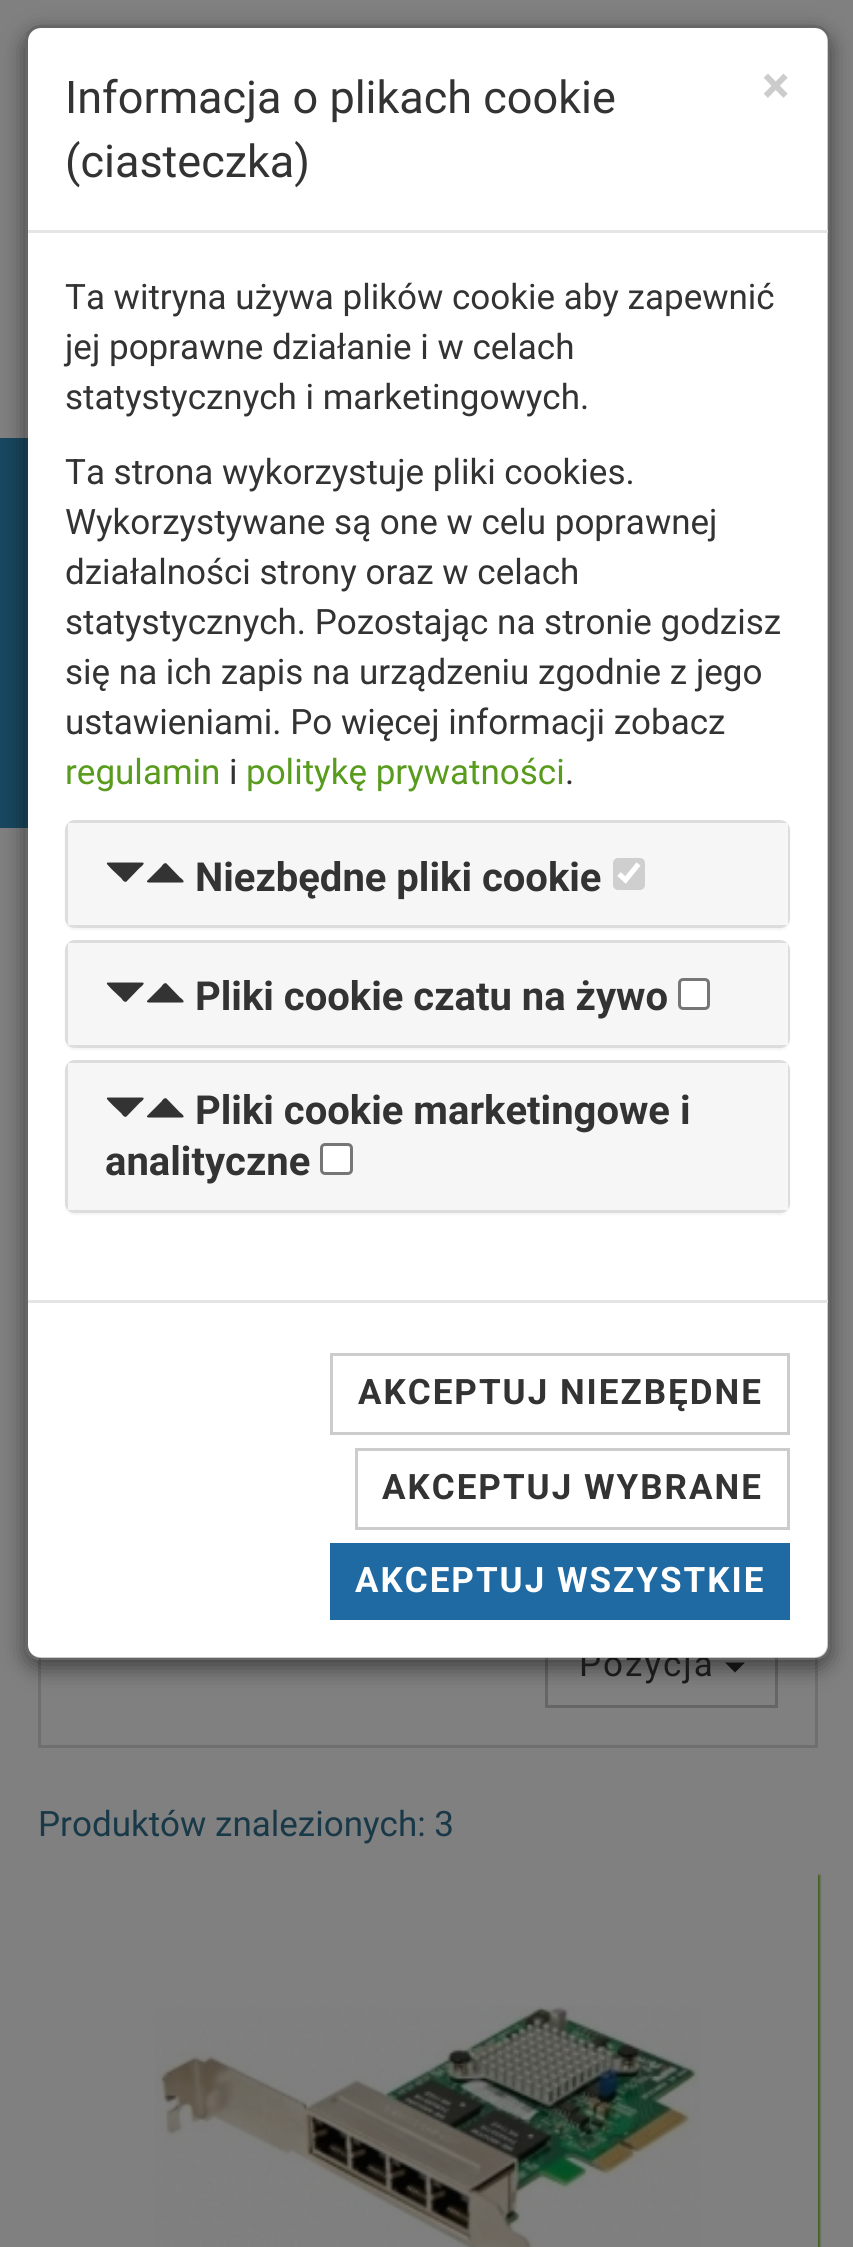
#include <cairo.h>
#include <math.h>
#include <stddef.h>


static void spaced_text(cairo_t *cr, double x, double y, const char *s, double letter, double word) {
    cairo_move_to(cr, x, y);
    while (*s) {
        char ch[5] = {0};
        int n = 0;
        do ch[n++] = *s++; while ((*s & 0xC0) == 0x80);
        cairo_show_text(cr, ch);
        cairo_rel_move_to(cr, letter + word * (*ch == ' '), 0);
    }
}

static void round_rect(cairo_t *cr, double x, double y, double w, double h, double r) {
    cairo_new_sub_path(cr);
    cairo_arc(cr, x + w - r, y + h - r, r, 0, M_PI / 2);
    cairo_arc(cr, x + r, y + h - r, r, M_PI / 2, M_PI);
    cairo_arc(cr, x + r, y + r, r, M_PI, 1.5 * M_PI);
    cairo_arc(cr, x + w - r, y + r, r, 1.5 * M_PI, 2 * M_PI);
    cairo_close_path(cr);
}

static void shadow(cairo_t *cr, double x, double y, double w, double h, double r, double blur, double alpha) {
    cairo_push_group_with_content(cr, CAIRO_CONTENT_ALPHA);
    cairo_set_operator(cr, CAIRO_OPERATOR_SOURCE);
    for (int i = 15; i >= -15 && fmin(w, h) + blur * i / 3 > 0; i -= 2) {
        double e = blur * i / 6;
        cairo_set_source_rgba(cr, 0, 0, 0, alpha * erfc((i - 1) / 8.5) / 2);
        round_rect(cr, x - e, y - e, w + 2 * e, h + 2 * e, fmax(0, fmin(r + e + blur * .6, fmin(w, h) / 2 + e)));
        cairo_fill(cr);
    }
    cairo_pattern_t *soft = cairo_pop_group(cr);
    cairo_mask(cr, soft);
    cairo_pattern_destroy(soft);
}

static void picture(cairo_t *cr, const char *path, double x, double y, double w, double h) {
    cairo_surface_t *image = cairo_image_surface_create_from_png(path);
    cairo_save(cr);
    cairo_set_source_surface(cr, image, x, y);
    cairo_rectangle(cr, x, y, w, h);
    cairo_fill(cr);
    cairo_restore(cr);
    cairo_surface_destroy(image);
}

int main(void) {
    cairo_surface_t *surface = cairo_image_surface_create(CAIRO_FORMAT_RGB24, 853, 2247);
    cairo_t *cr = cairo_create(surface);
    cairo_font_options_t *options = cairo_font_options_create();
    cairo_font_options_set_hint_metrics(options, CAIRO_HINT_METRICS_OFF);
    cairo_font_options_set_hint_style(options, CAIRO_HINT_STYLE_NONE);
    cairo_set_font_options(cr, options);
    cairo_set_miter_limit(cr, 4);
    cairo_set_source_rgb(cr, 0.502, 0.502, 0.502);
    cairo_paint(cr);
    cairo_set_source_rgb(cr, 0.094, 0.278, 0.373);
    cairo_new_path(cr);
    cairo_move_to(cr, 0, 828);
    cairo_line_to(cr, 0, 438);
    cairo_line_to(cr, 65, 438);
    cairo_curve_to(cr, 71, 438, 75, 442, 75, 448);
    cairo_line_to(cr, 75, 818);
    cairo_curve_to(cr, 75, 823, 71, 828, 65, 828);
    cairo_close_path(cr);
    cairo_fill(cr);
    cairo_rectangle(cr, 39.5, 1494.5, 777, 252);
    cairo_set_source_rgb(cr, 0.435, 0.435, 0.435);
    cairo_set_line_width(cr, 3);
    cairo_stroke(cr);
    cairo_rectangle(cr, 546.5, 1621.5, 230, 85);
    cairo_set_source_rgb(cr, 0.4, 0.4, 0.4);
    cairo_stroke(cr);
    cairo_set_source_rgb(cr, 0.102, 0.102, 0.102);
    cairo_new_path(cr);
    cairo_move_to(cr, 725, 1662.5);
    cairo_line_to(cr, 745, 1662.5);
    cairo_line_to(cr, 735, 1672.5);
    cairo_close_path(cr);
    cairo_fill(cr);
    cairo_save(cr);
    cairo_set_fill_rule(cr, CAIRO_FILL_RULE_EVEN_ODD);
    cairo_new_path(cr);
    cairo_move_to(cr, 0, 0);
    cairo_line_to(cr, 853, 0);
    cairo_line_to(cr, 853, 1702);
    cairo_line_to(cr, 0, 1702);
    cairo_close_path(cr);
    cairo_move_to(cr, 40, 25);
    cairo_line_to(cr, 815, 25);
    cairo_curve_to(cr, 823.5, 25, 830, 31.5, 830, 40);
    cairo_line_to(cr, 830, 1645);
    cairo_curve_to(cr, 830, 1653.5, 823.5, 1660, 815, 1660);
    cairo_line_to(cr, 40, 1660);
    cairo_curve_to(cr, 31.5, 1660, 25, 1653.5, 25, 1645);
    cairo_line_to(cr, 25, 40);
    cairo_curve_to(cr, 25, 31.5, 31.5, 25, 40, 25);
    cairo_close_path(cr);
    cairo_clip(cr);
    cairo_set_source_rgb(cr, 0, 0, 0);
    shadow(cr, 25, 33, 805, 1635, 15, 11, 0.5);
    cairo_restore(cr);
    cairo_select_font_face(cr, "Roboto", CAIRO_FONT_SLANT_NORMAL, CAIRO_FONT_WEIGHT_NORMAL);
    cairo_set_font_size(cr, 35);
    spaced_text(cr, 579, 1676, "Pozycja", 2, 0);
    cairo_set_source_rgb(cr, 1, 1, 1);
    round_rect(cr, 28, 28, 800, 1630, 13);
    cairo_fill(cr);
    round_rect(cr, 26.5, 26.5, 802, 1632, 13.5);
    cairo_set_source_rgba(cr, 0, 0, 0, 0.2);
    cairo_stroke(cr);
    cairo_set_source_rgb(cr, 0.898, 0.898, 0.898);
    cairo_rectangle(cr, 28, 230, 800, 3);
    cairo_fill(cr);
    cairo_set_font_size(cr, 45);
    cairo_set_source_rgb(cr, 0.2, 0.2, 0.2);
    cairo_move_to(cr, 65, 113);
    cairo_show_text(cr, "Informacja o plikach cookie");
    cairo_move_to(cr, 65, 177);
    cairo_show_text(cr, "(ciasteczka)");
    cairo_select_font_face(cr, "Roboto", CAIRO_FONT_SLANT_NORMAL, CAIRO_FONT_WEIGHT_BOLD);
    cairo_set_font_size(cr, 52);
    cairo_set_source_rgb(cr, 0.8, 0.8, 0.8);
    cairo_move_to(cr, 762, 103);
    cairo_show_text(cr, "×");
    cairo_select_font_face(cr, "Roboto", CAIRO_FONT_SLANT_NORMAL, CAIRO_FONT_WEIGHT_NORMAL);
    cairo_set_font_size(cr, 35);
    cairo_set_source_rgb(cr, 0.2, 0.2, 0.2);
    cairo_move_to(cr, 65, 309);
    cairo_show_text(cr, "Ta witryna używa plików cookie aby zapewnić");
    cairo_move_to(cr, 65, 359);
    cairo_show_text(cr, "jej poprawne działanie i w celach");
    cairo_move_to(cr, 65, 409);
    cairo_show_text(cr, "statystycznych i marketingowych.");
    cairo_move_to(cr, 65, 484);
    cairo_show_text(cr, "Ta strona wykorzystuje pliki cookies.");
    cairo_move_to(cr, 65, 534);
    cairo_show_text(cr, "Wykorzystywane są one w celu poprawnej");
    cairo_move_to(cr, 65, 584);
    cairo_show_text(cr, "działalności strony oraz w celach");
    cairo_move_to(cr, 65, 634);
    cairo_show_text(cr, "statystycznych. Pozostając na stronie godzisz");
    cairo_move_to(cr, 65, 684);
    cairo_show_text(cr, "się na ich zapis na urządzeniu zgodnie z jego");
    cairo_move_to(cr, 65, 734);
    cairo_show_text(cr, "ustawieniami. Po więcej informacji zobacz");
    cairo_set_source_rgb(cr, 0.345, 0.608, 0.114);
    cairo_move_to(cr, 65, 784);
    cairo_show_text(cr, "regulamin");
    cairo_set_source_rgb(cr, 0.2, 0.2, 0.2);
    cairo_move_to(cr, 229, 784);
    cairo_show_text(cr, "i");
    cairo_set_source_rgb(cr, 0.345, 0.608, 0.114);
    cairo_move_to(cr, 246, 784);
    cairo_show_text(cr, "politykę prywatności");
    cairo_set_source_rgb(cr, 0.2, 0.2, 0.2);
    cairo_move_to(cr, 565, 784);
    cairo_show_text(cr, ".");
    cairo_set_source_rgb(cr, 0, 0, 0);
    shadow(cr, 65, 823, 725, 107, 10, 1, 0.05);
    round_rect(cr, 66.5, 821.5, 722, 105, 8.5);
    cairo_set_source_rgb(cr, 0.867, 0.867, 0.867);
    cairo_stroke(cr);
    cairo_set_source_rgb(cr, 0.961, 0.961, 0.961);
    cairo_rectangle(cr, 68, 823, 720, 102);
    cairo_fill(cr);
    cairo_set_source_rgb(cr, 0.2, 0.2, 0.2);
    cairo_new_path(cr);
    cairo_move_to(cr, 108.5, 862.5);
    cairo_line_to(cr, 142, 862.5);
    cairo_curve_to(cr, 146.5, 862.5, 140.5, 867.5, 140, 867.5);
    cairo_line_to(cr, 126.5, 881.5);
    cairo_curve_to(cr, 124.5, 883, 122, 879.5, 121.5, 878.5);
    cairo_line_to(cr, 113, 870.5);
    cairo_curve_to(cr, 109.5, 866.5, 104, 862.5, 108.5, 862.5);
    cairo_close_path(cr);
    cairo_fill(cr);
    cairo_new_path(cr);
    cairo_move_to(cr, 166.5, 863.5);
    cairo_line_to(cr, 180, 877.5);
    cairo_curve_to(cr, 180.5, 877.5, 186.5, 882.5, 182, 882.5);
    cairo_line_to(cr, 148.5, 882.5);
    cairo_line_to(cr, 147, 882);
    cairo_line_to(cr, 147, 881);
    cairo_line_to(cr, 161.5, 866.5);
    cairo_curve_to(cr, 162, 865.5, 164.5, 862, 166.5, 863.5);
    cairo_close_path(cr);
    cairo_fill(cr);
    cairo_select_font_face(cr, "Roboto", CAIRO_FONT_SLANT_NORMAL, CAIRO_FONT_WEIGHT_BOLD);
    cairo_set_font_size(cr, 40);
    cairo_move_to(cr, 195, 891);
    cairo_show_text(cr, "Niezbędne pliki cookie");
    cairo_set_source_rgb(cr, 0.812, 0.812, 0.812);
    round_rect(cr, 613, 858, 32, 32, 5);
    cairo_fill(cr);
    cairo_new_path(cr);
    cairo_move_to(cr, 619, 874);
    cairo_line_to(cr, 625.5, 880);
    cairo_line_to(cr, 638.5, 864);
    cairo_set_source_rgb(cr, 1, 1, 1);
    cairo_set_line_width(cr, 5.2);
    cairo_stroke(cr);
    cairo_set_source_rgb(cr, 0, 0, 0);
    shadow(cr, 65, 943, 725, 107, 10, 1, 0.05);
    round_rect(cr, 66.5, 941.5, 722, 105, 8.5);
    cairo_set_source_rgb(cr, 0.867, 0.867, 0.867);
    cairo_set_line_width(cr, 3);
    cairo_stroke(cr);
    cairo_set_source_rgb(cr, 0.961, 0.961, 0.961);
    cairo_rectangle(cr, 68, 943, 720, 102);
    cairo_fill(cr);
    cairo_set_source_rgb(cr, 0.2, 0.2, 0.2);
    cairo_new_path(cr);
    cairo_move_to(cr, 108.5, 982.5);
    cairo_line_to(cr, 142, 982.5);
    cairo_curve_to(cr, 146.5, 982.5, 140.5, 987.5, 140, 987.5);
    cairo_line_to(cr, 126.5, 1001.5);
    cairo_curve_to(cr, 124.5, 1003, 122, 999.5, 121.5, 998.5);
    cairo_line_to(cr, 113, 990.5);
    cairo_curve_to(cr, 109.5, 986.5, 104, 982.5, 108.5, 982.5);
    cairo_close_path(cr);
    cairo_fill(cr);
    cairo_new_path(cr);
    cairo_move_to(cr, 166.5, 983.5);
    cairo_line_to(cr, 180, 997.5);
    cairo_curve_to(cr, 180.5, 997.5, 186.5, 1002.5, 182, 1002.5);
    cairo_line_to(cr, 148.5, 1002.5);
    cairo_line_to(cr, 147, 1002);
    cairo_line_to(cr, 147, 1001);
    cairo_line_to(cr, 161.5, 986.5);
    cairo_curve_to(cr, 162, 985.5, 164.5, 982, 166.5, 983.5);
    cairo_close_path(cr);
    cairo_fill(cr);
    cairo_move_to(cr, 195, 1010);
    cairo_show_text(cr, "Pliki cookie czatu na żywo");
    cairo_set_source_rgb(cr, 1, 1, 1);
    round_rect(cr, 679.5, 979.5, 29, 29, 3.5);
    cairo_fill_preserve(cr);
    cairo_set_source_rgb(cr, 0.463, 0.463, 0.463);
    cairo_stroke(cr);
    cairo_set_source_rgb(cr, 0, 0, 0);
    shadow(cr, 65, 1063, 725, 152, 10, 1, 0.05);
    round_rect(cr, 66.5, 1061.5, 722, 150, 8.5);
    cairo_set_source_rgb(cr, 0.867, 0.867, 0.867);
    cairo_stroke(cr);
    cairo_set_source_rgb(cr, 0.961, 0.961, 0.961);
    cairo_rectangle(cr, 68, 1063, 720, 147);
    cairo_fill(cr);
    cairo_set_source_rgb(cr, 0.2, 0.2, 0.2);
    cairo_new_path(cr);
    cairo_move_to(cr, 108.5, 1097.5);
    cairo_line_to(cr, 142, 1097.5);
    cairo_curve_to(cr, 146.5, 1097.5, 140.5, 1102.5, 140, 1102.5);
    cairo_line_to(cr, 126.5, 1116.5);
    cairo_curve_to(cr, 124.5, 1118, 122, 1114.5, 121.5, 1113.5);
    cairo_line_to(cr, 113, 1105.5);
    cairo_curve_to(cr, 109.5, 1101.5, 104, 1097.5, 108.5, 1097.5);
    cairo_close_path(cr);
    cairo_fill(cr);
    cairo_new_path(cr);
    cairo_move_to(cr, 166.5, 1098.5);
    cairo_line_to(cr, 180, 1112.5);
    cairo_curve_to(cr, 180.5, 1112.5, 186.5, 1117.5, 182, 1117.5);
    cairo_line_to(cr, 148.5, 1117.5);
    cairo_line_to(cr, 147, 1117);
    cairo_line_to(cr, 147, 1116);
    cairo_line_to(cr, 161.5, 1101.5);
    cairo_curve_to(cr, 162, 1100.5, 164.5, 1097, 166.5, 1098.5);
    cairo_close_path(cr);
    cairo_fill(cr);
    cairo_move_to(cr, 195, 1124);
    cairo_show_text(cr, "Pliki cookie marketingowe i");
    cairo_move_to(cr, 105, 1175);
    cairo_show_text(cr, "analityczne");
    cairo_set_source_rgb(cr, 1, 1, 1);
    round_rect(cr, 321.5, 1144.5, 30, 29, 3.5);
    cairo_fill_preserve(cr);
    cairo_set_source_rgb(cr, 0.463, 0.463, 0.463);
    cairo_stroke(cr);
    cairo_set_source_rgb(cr, 0.898, 0.898, 0.898);
    cairo_rectangle(cr, 28, 1300, 800, 3);
    cairo_fill(cr);
    cairo_rectangle(cr, 331.5, 1354.5, 457, 79);
    cairo_set_source_rgb(cr, 0.8, 0.8, 0.8);
    cairo_stroke(cr);
    cairo_set_font_size(cr, 35);
    cairo_set_source_rgb(cr, 0.2, 0.2, 0.2);
    spaced_text(cr, 358, 1404, "AKCEPTUJ NIEZBĘDNE", 2, 0);
    cairo_rectangle(cr, 356.5, 1449.5, 432, 79);
    cairo_set_source_rgb(cr, 0.8, 0.8, 0.8);
    cairo_stroke(cr);
    cairo_set_source_rgb(cr, 0.2, 0.2, 0.2);
    spaced_text(cr, 382, 1499, "AKCEPTUJ WYBRANE", 2, 0);
    cairo_set_source_rgb(cr, 0.122, 0.416, 0.635);
    cairo_rectangle(cr, 330, 1543, 460, 77);
    cairo_fill(cr);
    cairo_set_source_rgb(cr, 1, 1, 1);
    spaced_text(cr, 355, 1592, "AKCEPTUJ WSZYSTKIE", 2, 0);
    cairo_select_font_face(cr, "Roboto", CAIRO_FONT_SLANT_NORMAL, CAIRO_FONT_WEIGHT_NORMAL);
    cairo_set_source_rgb(cr, 0.098, 0.22, 0.282);
    cairo_move_to(cr, 38, 1836);
    cairo_show_text(cr, "Produktów znalezionych: 3");
    cairo_set_source_rgb(cr, 0.259, 0.365, 0.125);
    shadow(cr, 40, 1875, 780, 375, 0, 1, 1);
    cairo_set_source_rgb(cr, 0.502, 0.502, 0.502);
    cairo_rectangle(cr, 38, 1873, 780, 374);
    cairo_fill(cr);
    picture(cr, "img1.png", 155, 2006, 545, 241);
    cairo_surface_write_to_png(surface, "page.png");
    cairo_font_options_destroy(options);
    cairo_destroy(cr);
    cairo_surface_destroy(surface);
    return 0;
}
